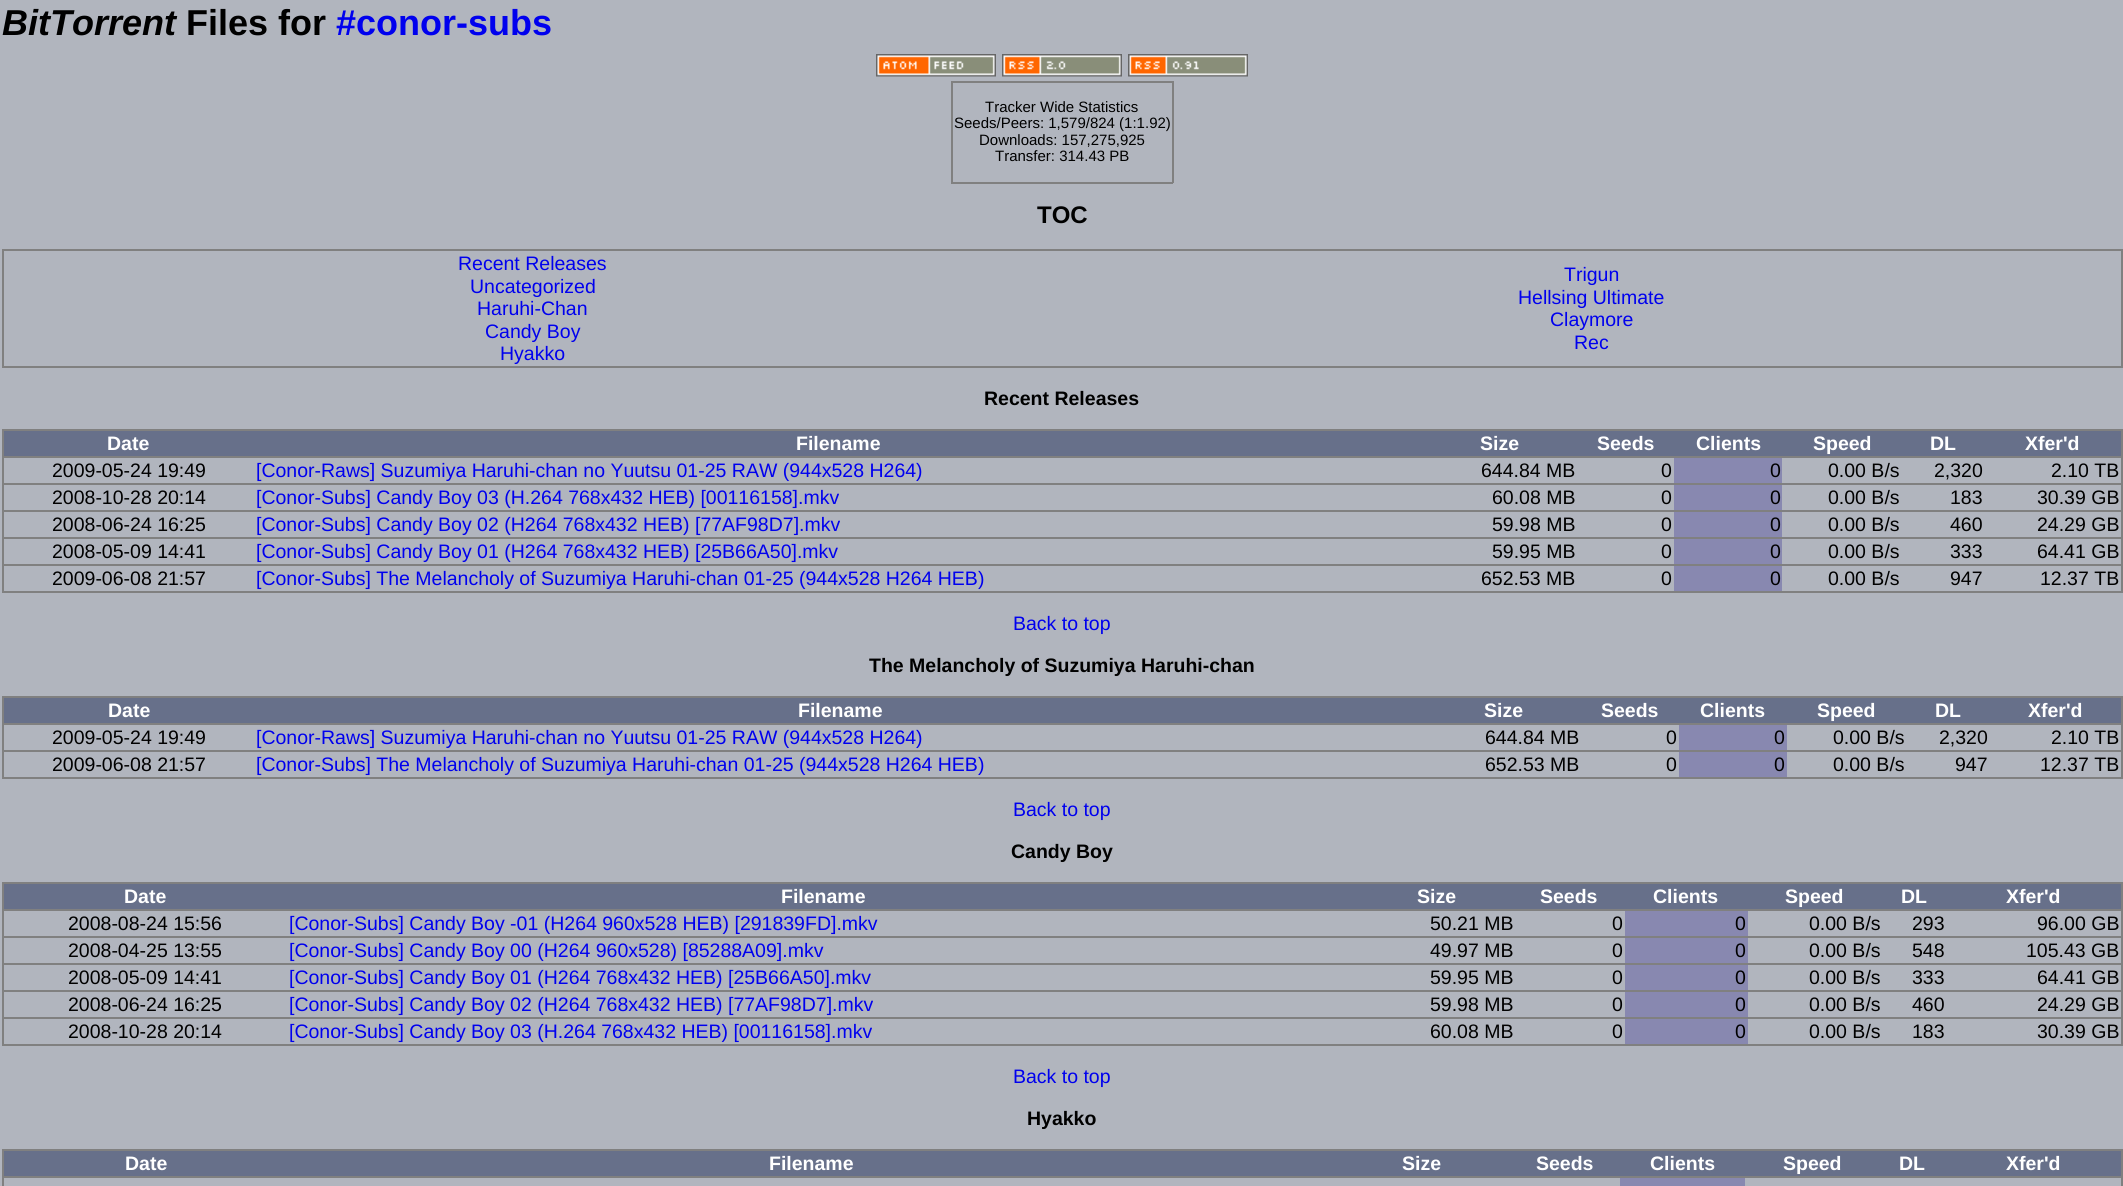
#include <cairo.h>
#include <math.h>
#include <stddef.h>


static void picture(cairo_t *cr, const char *path, double x, double y, double w, double h) {
    cairo_surface_t *image = cairo_image_surface_create_from_png(path);
    cairo_save(cr);
    cairo_set_source_surface(cr, image, x, y);
    cairo_rectangle(cr, x, y, w, h);
    cairo_fill(cr);
    cairo_restore(cr);
    cairo_surface_destroy(image);
}

int main(void) {
    cairo_surface_t *surface = cairo_image_surface_create(CAIRO_FORMAT_RGB24, 2123, 1186);
    cairo_t *cr = cairo_create(surface);
    cairo_font_options_t *options = cairo_font_options_create();
    cairo_font_options_set_hint_metrics(options, CAIRO_HINT_METRICS_OFF);
    cairo_font_options_set_hint_style(options, CAIRO_HINT_STYLE_NONE);
    cairo_set_font_options(cr, options);
    cairo_set_miter_limit(cr, 4);
    cairo_set_source_rgb(cr, 0.694, 0.71, 0.745);
    cairo_paint(cr);
    cairo_select_font_face(cr, "Liberation Sans", CAIRO_FONT_SLANT_ITALIC, CAIRO_FONT_WEIGHT_BOLD);
    cairo_set_font_size(cr, 36);
    cairo_set_source_rgb(cr, 0, 0, 0);
    cairo_move_to(cr, 2, 35);
    cairo_show_text(cr, "BitTorrent");
    cairo_select_font_face(cr, "Liberation Sans", CAIRO_FONT_SLANT_NORMAL, CAIRO_FONT_WEIGHT_BOLD);
    cairo_move_to(cr, 186, 35);
    cairo_show_text(cr, "Files for");
    cairo_set_source_rgb(cr, 0, 0, 0.933);
    cairo_move_to(cr, 336, 35);
    cairo_show_text(cr, "#conor-subs");
    picture(cr, "img1.png", 876, 54, 120, 23);
    picture(cr, "img2.png", 1002, 54, 120, 23);
    picture(cr, "img3.png", 1128, 54, 120, 23);
    cairo_set_source_rgb(cr, 0.502, 0.502, 0.502);
    cairo_rectangle(cr, 951, 81, 222, 2);
    cairo_fill(cr);
    cairo_rectangle(cr, 1172, 81, 2, 102);
    cairo_fill(cr);
    cairo_rectangle(cr, 951, 182, 222, 2);
    cairo_fill(cr);
    cairo_rectangle(cr, 951, 81, 2, 102);
    cairo_fill(cr);
    cairo_select_font_face(cr, "Liberation Sans", CAIRO_FONT_SLANT_NORMAL, CAIRO_FONT_WEIGHT_NORMAL);
    cairo_set_font_size(cr, 15);
    cairo_set_source_rgb(cr, 0, 0, 0);
    cairo_move_to(cr, 985, 112);
    cairo_show_text(cr, "Tracker Wide Statistics");
    cairo_move_to(cr, 954, 128);
    cairo_show_text(cr, "Seeds/Peers: 1,579/824 (1:1.92)");
    cairo_move_to(cr, 979, 145);
    cairo_show_text(cr, "Downloads: 157,275,925");
    cairo_move_to(cr, 995, 161);
    cairo_show_text(cr, "Transfer: 314.43 PB");
    cairo_select_font_face(cr, "Liberation Sans", CAIRO_FONT_SLANT_NORMAL, CAIRO_FONT_WEIGHT_BOLD);
    cairo_set_font_size(cr, 24);
    cairo_move_to(cr, 1037, 223);
    cairo_show_text(cr, "TOC");
    cairo_set_source_rgb(cr, 0.502, 0.502, 0.502);
    cairo_rectangle(cr, 2, 249, 2121, 2);
    cairo_fill(cr);
    cairo_rectangle(cr, 2121, 249, 2, 119);
    cairo_fill(cr);
    cairo_rectangle(cr, 2, 366, 2121, 2);
    cairo_fill(cr);
    cairo_rectangle(cr, 2, 249, 2, 119);
    cairo_fill(cr);
    cairo_select_font_face(cr, "Liberation Sans", CAIRO_FONT_SLANT_NORMAL, CAIRO_FONT_WEIGHT_NORMAL);
    cairo_set_font_size(cr, 19.5);
    cairo_set_source_rgb(cr, 0, 0, 0.933);
    cairo_move_to(cr, 458, 270);
    cairo_show_text(cr, "Recent Releases");
    cairo_move_to(cr, 470, 293);
    cairo_show_text(cr, "Uncategorized");
    cairo_move_to(cr, 477, 315);
    cairo_show_text(cr, "Haruhi-Chan");
    cairo_move_to(cr, 485, 338);
    cairo_show_text(cr, "Candy Boy");
    cairo_move_to(cr, 500, 360);
    cairo_show_text(cr, "Hyakko");
    cairo_move_to(cr, 1564, 281);
    cairo_show_text(cr, "Trigun");
    cairo_move_to(cr, 1518, 304);
    cairo_show_text(cr, "Hellsing Ultimate");
    cairo_move_to(cr, 1550, 326);
    cairo_show_text(cr, "Claymore");
    cairo_move_to(cr, 1574, 349);
    cairo_show_text(cr, "Rec");
    cairo_select_font_face(cr, "Liberation Sans", CAIRO_FONT_SLANT_NORMAL, CAIRO_FONT_WEIGHT_BOLD);
    cairo_set_source_rgb(cr, 0, 0, 0);
    cairo_move_to(cr, 984, 405);
    cairo_show_text(cr, "Recent Releases");
    cairo_set_source_rgb(cr, 0.502, 0.502, 0.502);
    cairo_rectangle(cr, 2, 429, 2121, 2);
    cairo_fill(cr);
    cairo_rectangle(cr, 2, 456, 2121, 2);
    cairo_fill(cr);
    cairo_rectangle(cr, 2, 483, 2121, 2);
    cairo_fill(cr);
    cairo_rectangle(cr, 2, 510, 2121, 2);
    cairo_fill(cr);
    cairo_rectangle(cr, 2, 537, 2121, 2);
    cairo_fill(cr);
    cairo_rectangle(cr, 2, 564, 2121, 2);
    cairo_fill(cr);
    cairo_rectangle(cr, 2121, 564, 2, 29);
    cairo_fill(cr);
    cairo_rectangle(cr, 2121, 537, 2, 29);
    cairo_fill(cr);
    cairo_rectangle(cr, 2121, 510, 2, 29);
    cairo_fill(cr);
    cairo_rectangle(cr, 2121, 483, 2, 29);
    cairo_fill(cr);
    cairo_rectangle(cr, 2121, 456, 2, 29);
    cairo_fill(cr);
    cairo_rectangle(cr, 2121, 429, 2, 29);
    cairo_fill(cr);
    cairo_rectangle(cr, 2, 591, 2121, 2);
    cairo_fill(cr);
    cairo_rectangle(cr, 2, 564, 2, 29);
    cairo_fill(cr);
    cairo_rectangle(cr, 2, 537, 2, 29);
    cairo_fill(cr);
    cairo_rectangle(cr, 2, 510, 2, 29);
    cairo_fill(cr);
    cairo_rectangle(cr, 2, 483, 2, 29);
    cairo_fill(cr);
    cairo_rectangle(cr, 2, 456, 2, 29);
    cairo_fill(cr);
    cairo_rectangle(cr, 2, 429, 2, 29);
    cairo_fill(cr);
    cairo_set_source_rgb(cr, 0.404, 0.439, 0.541);
    cairo_rectangle(cr, 4, 431, 2117, 25);
    cairo_fill(cr);
    cairo_set_source_rgb(cr, 1, 1, 1);
    cairo_move_to(cr, 107, 450);
    cairo_show_text(cr, "Date");
    cairo_move_to(cr, 796, 450);
    cairo_show_text(cr, "Filename");
    cairo_move_to(cr, 1480, 450);
    cairo_show_text(cr, "Size");
    cairo_move_to(cr, 1597, 450);
    cairo_show_text(cr, "Seeds");
    cairo_move_to(cr, 1696, 450);
    cairo_show_text(cr, "Clients");
    cairo_move_to(cr, 1813, 450);
    cairo_show_text(cr, "Speed");
    cairo_move_to(cr, 1930, 450);
    cairo_show_text(cr, "DL");
    cairo_move_to(cr, 2025, 450);
    cairo_show_text(cr, "Xfer'd");
    cairo_select_font_face(cr, "Liberation Sans", CAIRO_FONT_SLANT_NORMAL, CAIRO_FONT_WEIGHT_NORMAL);
    cairo_set_source_rgb(cr, 0, 0, 0);
    cairo_move_to(cr, 52, 477);
    cairo_show_text(cr, "2009-05-24 19:49");
    cairo_set_source_rgb(cr, 0, 0, 0.933);
    cairo_move_to(cr, 256, 477);
    cairo_show_text(cr, "[Conor-Raws] Suzumiya Haruhi-chan no Yuutsu 01-25 RAW (944x528 H264)");
    cairo_set_source_rgb(cr, 0, 0, 0);
    cairo_move_to(cr, 1481, 477);
    cairo_show_text(cr, "644.84 MB");
    cairo_move_to(cr, 1661, 477);
    cairo_show_text(cr, "0");
    cairo_set_source_rgb(cr, 0.533, 0.533, 0.69);
    cairo_rectangle(cr, 1674, 458, 108, 25);
    cairo_fill(cr);
    cairo_set_source_rgb(cr, 0, 0, 0);
    cairo_move_to(cr, 1770, 477);
    cairo_show_text(cr, "0");
    cairo_move_to(cr, 1828, 477);
    cairo_show_text(cr, "0.00 B/s");
    cairo_move_to(cr, 1934, 477);
    cairo_show_text(cr, "2,320");
    cairo_move_to(cr, 2051, 477);
    cairo_show_text(cr, "2.10 TB");
    cairo_move_to(cr, 52, 504);
    cairo_show_text(cr, "2008-10-28 20:14");
    cairo_set_source_rgb(cr, 0, 0, 0.933);
    cairo_move_to(cr, 256, 504);
    cairo_show_text(cr, "[Conor-Subs] Candy Boy 03 (H.264 768x432 HEB) [00116158].mkv");
    cairo_set_source_rgb(cr, 0, 0, 0);
    cairo_move_to(cr, 1492, 504);
    cairo_show_text(cr, "60.08 MB");
    cairo_move_to(cr, 1661, 504);
    cairo_show_text(cr, "0");
    cairo_set_source_rgb(cr, 0.533, 0.533, 0.69);
    cairo_rectangle(cr, 1674, 485, 108, 25);
    cairo_fill(cr);
    cairo_set_source_rgb(cr, 0, 0, 0);
    cairo_move_to(cr, 1770, 504);
    cairo_show_text(cr, "0");
    cairo_move_to(cr, 1828, 504);
    cairo_show_text(cr, "0.00 B/s");
    cairo_move_to(cr, 1950, 504);
    cairo_show_text(cr, "183");
    cairo_move_to(cr, 2037, 504);
    cairo_show_text(cr, "30.39 GB");
    cairo_move_to(cr, 52, 531);
    cairo_show_text(cr, "2008-06-24 16:25");
    cairo_set_source_rgb(cr, 0, 0, 0.933);
    cairo_move_to(cr, 256, 531);
    cairo_show_text(cr, "[Conor-Subs] Candy Boy 02 (H264 768x432 HEB) [77AF98D7].mkv");
    cairo_set_source_rgb(cr, 0, 0, 0);
    cairo_move_to(cr, 1492, 531);
    cairo_show_text(cr, "59.98 MB");
    cairo_move_to(cr, 1661, 531);
    cairo_show_text(cr, "0");
    cairo_set_source_rgb(cr, 0.533, 0.533, 0.69);
    cairo_rectangle(cr, 1674, 512, 108, 25);
    cairo_fill(cr);
    cairo_set_source_rgb(cr, 0, 0, 0);
    cairo_move_to(cr, 1770, 531);
    cairo_show_text(cr, "0");
    cairo_move_to(cr, 1828, 531);
    cairo_show_text(cr, "0.00 B/s");
    cairo_move_to(cr, 1950, 531);
    cairo_show_text(cr, "460");
    cairo_move_to(cr, 2037, 531);
    cairo_show_text(cr, "24.29 GB");
    cairo_move_to(cr, 52, 558);
    cairo_show_text(cr, "2008-05-09 14:41");
    cairo_set_source_rgb(cr, 0, 0, 0.933);
    cairo_move_to(cr, 256, 558);
    cairo_show_text(cr, "[Conor-Subs] Candy Boy 01 (H264 768x432 HEB) [25B66A50].mkv");
    cairo_set_source_rgb(cr, 0, 0, 0);
    cairo_move_to(cr, 1492, 558);
    cairo_show_text(cr, "59.95 MB");
    cairo_move_to(cr, 1661, 558);
    cairo_show_text(cr, "0");
    cairo_set_source_rgb(cr, 0.533, 0.533, 0.69);
    cairo_rectangle(cr, 1674, 539, 108, 25);
    cairo_fill(cr);
    cairo_set_source_rgb(cr, 0, 0, 0);
    cairo_move_to(cr, 1770, 558);
    cairo_show_text(cr, "0");
    cairo_move_to(cr, 1828, 558);
    cairo_show_text(cr, "0.00 B/s");
    cairo_move_to(cr, 1950, 558);
    cairo_show_text(cr, "333");
    cairo_move_to(cr, 2037, 558);
    cairo_show_text(cr, "64.41 GB");
    cairo_move_to(cr, 52, 585);
    cairo_show_text(cr, "2009-06-08 21:57");
    cairo_set_source_rgb(cr, 0, 0, 0.933);
    cairo_move_to(cr, 256, 585);
    cairo_show_text(cr, "[Conor-Subs] The Melancholy of Suzumiya Haruhi-chan 01-25 (944x528 H264 HEB)");
    cairo_set_source_rgb(cr, 0, 0, 0);
    cairo_move_to(cr, 1481, 585);
    cairo_show_text(cr, "652.53 MB");
    cairo_move_to(cr, 1661, 585);
    cairo_show_text(cr, "0");
    cairo_set_source_rgb(cr, 0.533, 0.533, 0.69);
    cairo_rectangle(cr, 1674, 566, 108, 25);
    cairo_fill(cr);
    cairo_set_source_rgb(cr, 0, 0, 0);
    cairo_move_to(cr, 1770, 585);
    cairo_show_text(cr, "0");
    cairo_move_to(cr, 1828, 585);
    cairo_show_text(cr, "0.00 B/s");
    cairo_move_to(cr, 1950, 585);
    cairo_show_text(cr, "947");
    cairo_move_to(cr, 2040, 585);
    cairo_show_text(cr, "12.37 TB");
    cairo_set_source_rgb(cr, 0, 0, 0.933);
    cairo_move_to(cr, 1013, 630);
    cairo_show_text(cr, "Back to top");
    cairo_select_font_face(cr, "Liberation Sans", CAIRO_FONT_SLANT_NORMAL, CAIRO_FONT_WEIGHT_BOLD);
    cairo_set_source_rgb(cr, 0, 0, 0);
    cairo_move_to(cr, 869, 672);
    cairo_show_text(cr, "The Melancholy of Suzumiya Haruhi-chan");
    cairo_set_source_rgb(cr, 0.502, 0.502, 0.502);
    cairo_rectangle(cr, 2, 696, 2121, 2);
    cairo_fill(cr);
    cairo_rectangle(cr, 2, 723, 2121, 2);
    cairo_fill(cr);
    cairo_rectangle(cr, 2, 750, 2121, 2);
    cairo_fill(cr);
    cairo_rectangle(cr, 2121, 750, 2, 29);
    cairo_fill(cr);
    cairo_rectangle(cr, 2121, 723, 2, 29);
    cairo_fill(cr);
    cairo_rectangle(cr, 2121, 696, 2, 29);
    cairo_fill(cr);
    cairo_rectangle(cr, 2, 777, 2121, 2);
    cairo_fill(cr);
    cairo_rectangle(cr, 2, 750, 2, 29);
    cairo_fill(cr);
    cairo_rectangle(cr, 2, 723, 2, 29);
    cairo_fill(cr);
    cairo_rectangle(cr, 2, 696, 2, 29);
    cairo_fill(cr);
    cairo_set_source_rgb(cr, 0.404, 0.439, 0.541);
    cairo_rectangle(cr, 4, 698, 2117, 25);
    cairo_fill(cr);
    cairo_set_source_rgb(cr, 1, 1, 1);
    cairo_move_to(cr, 108, 717);
    cairo_show_text(cr, "Date");
    cairo_move_to(cr, 798, 717);
    cairo_show_text(cr, "Filename");
    cairo_move_to(cr, 1484, 717);
    cairo_show_text(cr, "Size");
    cairo_move_to(cr, 1601, 717);
    cairo_show_text(cr, "Seeds");
    cairo_move_to(cr, 1700, 717);
    cairo_show_text(cr, "Clients");
    cairo_move_to(cr, 1817, 717);
    cairo_show_text(cr, "Speed");
    cairo_move_to(cr, 1935, 717);
    cairo_show_text(cr, "DL");
    cairo_move_to(cr, 2028, 717);
    cairo_show_text(cr, "Xfer'd");
    cairo_select_font_face(cr, "Liberation Sans", CAIRO_FONT_SLANT_NORMAL, CAIRO_FONT_WEIGHT_NORMAL);
    cairo_set_source_rgb(cr, 0, 0, 0);
    cairo_move_to(cr, 52, 744);
    cairo_show_text(cr, "2009-05-24 19:49");
    cairo_set_source_rgb(cr, 0, 0, 0.933);
    cairo_move_to(cr, 256, 744);
    cairo_show_text(cr, "[Conor-Raws] Suzumiya Haruhi-chan no Yuutsu 01-25 RAW (944x528 H264)");
    cairo_set_source_rgb(cr, 0, 0, 0);
    cairo_move_to(cr, 1485, 744);
    cairo_show_text(cr, "644.84 MB");
    cairo_move_to(cr, 1666, 744);
    cairo_show_text(cr, "0");
    cairo_set_source_rgb(cr, 0.533, 0.533, 0.69);
    cairo_rectangle(cr, 1679, 725, 108, 25);
    cairo_fill(cr);
    cairo_set_source_rgb(cr, 0, 0, 0);
    cairo_move_to(cr, 1774, 744);
    cairo_show_text(cr, "0");
    cairo_move_to(cr, 1833, 744);
    cairo_show_text(cr, "0.00 B/s");
    cairo_move_to(cr, 1939, 744);
    cairo_show_text(cr, "2,320");
    cairo_move_to(cr, 2051, 744);
    cairo_show_text(cr, "2.10 TB");
    cairo_move_to(cr, 52, 771);
    cairo_show_text(cr, "2009-06-08 21:57");
    cairo_set_source_rgb(cr, 0, 0, 0.933);
    cairo_move_to(cr, 256, 771);
    cairo_show_text(cr, "[Conor-Subs] The Melancholy of Suzumiya Haruhi-chan 01-25 (944x528 H264 HEB)");
    cairo_set_source_rgb(cr, 0, 0, 0);
    cairo_move_to(cr, 1485, 771);
    cairo_show_text(cr, "652.53 MB");
    cairo_move_to(cr, 1666, 771);
    cairo_show_text(cr, "0");
    cairo_set_source_rgb(cr, 0.533, 0.533, 0.69);
    cairo_rectangle(cr, 1679, 752, 108, 25);
    cairo_fill(cr);
    cairo_set_source_rgb(cr, 0, 0, 0);
    cairo_move_to(cr, 1774, 771);
    cairo_show_text(cr, "0");
    cairo_move_to(cr, 1833, 771);
    cairo_show_text(cr, "0.00 B/s");
    cairo_move_to(cr, 1955, 771);
    cairo_show_text(cr, "947");
    cairo_move_to(cr, 2040, 771);
    cairo_show_text(cr, "12.37 TB");
    cairo_set_source_rgb(cr, 0, 0, 0.933);
    cairo_move_to(cr, 1013, 816);
    cairo_show_text(cr, "Back to top");
    cairo_select_font_face(cr, "Liberation Sans", CAIRO_FONT_SLANT_NORMAL, CAIRO_FONT_WEIGHT_BOLD);
    cairo_set_source_rgb(cr, 0, 0, 0);
    cairo_move_to(cr, 1011, 858);
    cairo_show_text(cr, "Candy Boy");
    cairo_set_source_rgb(cr, 0.502, 0.502, 0.502);
    cairo_rectangle(cr, 2, 882, 2121, 2);
    cairo_fill(cr);
    cairo_rectangle(cr, 2, 909, 2121, 2);
    cairo_fill(cr);
    cairo_rectangle(cr, 2, 936, 2121, 2);
    cairo_fill(cr);
    cairo_rectangle(cr, 2, 963, 2121, 2);
    cairo_fill(cr);
    cairo_rectangle(cr, 2, 990, 2121, 2);
    cairo_fill(cr);
    cairo_rectangle(cr, 2, 1017, 2121, 2);
    cairo_fill(cr);
    cairo_rectangle(cr, 2121, 1017, 2, 29);
    cairo_fill(cr);
    cairo_rectangle(cr, 2121, 990, 2, 29);
    cairo_fill(cr);
    cairo_rectangle(cr, 2121, 963, 2, 29);
    cairo_fill(cr);
    cairo_rectangle(cr, 2121, 936, 2, 29);
    cairo_fill(cr);
    cairo_rectangle(cr, 2121, 909, 2, 29);
    cairo_fill(cr);
    cairo_rectangle(cr, 2121, 882, 2, 29);
    cairo_fill(cr);
    cairo_rectangle(cr, 2, 1044, 2121, 2);
    cairo_fill(cr);
    cairo_rectangle(cr, 2, 1017, 2, 29);
    cairo_fill(cr);
    cairo_rectangle(cr, 2, 990, 2, 29);
    cairo_fill(cr);
    cairo_rectangle(cr, 2, 963, 2, 29);
    cairo_fill(cr);
    cairo_rectangle(cr, 2, 936, 2, 29);
    cairo_fill(cr);
    cairo_rectangle(cr, 2, 909, 2, 29);
    cairo_fill(cr);
    cairo_rectangle(cr, 2, 882, 2, 29);
    cairo_fill(cr);
    cairo_set_source_rgb(cr, 0.404, 0.439, 0.541);
    cairo_rectangle(cr, 4, 884, 2117, 25);
    cairo_fill(cr);
    cairo_set_source_rgb(cr, 1, 1, 1);
    cairo_move_to(cr, 124, 903);
    cairo_show_text(cr, "Date");
    cairo_move_to(cr, 781, 903);
    cairo_show_text(cr, "Filename");
    cairo_move_to(cr, 1417, 903);
    cairo_show_text(cr, "Size");
    cairo_move_to(cr, 1540, 903);
    cairo_show_text(cr, "Seeds");
    cairo_move_to(cr, 1653, 903);
    cairo_show_text(cr, "Clients");
    cairo_move_to(cr, 1785, 903);
    cairo_show_text(cr, "Speed");
    cairo_move_to(cr, 1901, 903);
    cairo_show_text(cr, "DL");
    cairo_move_to(cr, 2006, 903);
    cairo_show_text(cr, "Xfer'd");
    cairo_select_font_face(cr, "Liberation Sans", CAIRO_FONT_SLANT_NORMAL, CAIRO_FONT_WEIGHT_NORMAL);
    cairo_set_source_rgb(cr, 0, 0, 0);
    cairo_move_to(cr, 68, 930);
    cairo_show_text(cr, "2008-08-24 15:56");
    cairo_set_source_rgb(cr, 0, 0, 0.933);
    cairo_move_to(cr, 289, 930);
    cairo_show_text(cr, "[Conor-Subs] Candy Boy -01 (H264 960x528 HEB) [291839FD].mkv");
    cairo_set_source_rgb(cr, 0, 0, 0);
    cairo_move_to(cr, 1430, 930);
    cairo_show_text(cr, "50.21 MB");
    cairo_move_to(cr, 1612, 930);
    cairo_show_text(cr, "0");
    cairo_set_source_rgb(cr, 0.533, 0.533, 0.69);
    cairo_rectangle(cr, 1625, 911, 123, 25);
    cairo_fill(cr);
    cairo_set_source_rgb(cr, 0, 0, 0);
    cairo_move_to(cr, 1735, 930);
    cairo_show_text(cr, "0");
    cairo_move_to(cr, 1809, 930);
    cairo_show_text(cr, "0.00 B/s");
    cairo_move_to(cr, 1912, 930);
    cairo_show_text(cr, "293");
    cairo_move_to(cr, 2037, 930);
    cairo_show_text(cr, "96.00 GB");
    cairo_move_to(cr, 68, 957);
    cairo_show_text(cr, "2008-04-25 13:55");
    cairo_set_source_rgb(cr, 0, 0, 0.933);
    cairo_move_to(cr, 289, 957);
    cairo_show_text(cr, "[Conor-Subs] Candy Boy 00 (H264 960x528) [85288A09].mkv");
    cairo_set_source_rgb(cr, 0, 0, 0);
    cairo_move_to(cr, 1430, 957);
    cairo_show_text(cr, "49.97 MB");
    cairo_move_to(cr, 1612, 957);
    cairo_show_text(cr, "0");
    cairo_set_source_rgb(cr, 0.533, 0.533, 0.69);
    cairo_rectangle(cr, 1625, 938, 123, 25);
    cairo_fill(cr);
    cairo_set_source_rgb(cr, 0, 0, 0);
    cairo_move_to(cr, 1735, 957);
    cairo_show_text(cr, "0");
    cairo_move_to(cr, 1809, 957);
    cairo_show_text(cr, "0.00 B/s");
    cairo_move_to(cr, 1912, 957);
    cairo_show_text(cr, "548");
    cairo_move_to(cr, 2026, 957);
    cairo_show_text(cr, "105.43 GB");
    cairo_move_to(cr, 68, 984);
    cairo_show_text(cr, "2008-05-09 14:41");
    cairo_set_source_rgb(cr, 0, 0, 0.933);
    cairo_move_to(cr, 289, 984);
    cairo_show_text(cr, "[Conor-Subs] Candy Boy 01 (H264 768x432 HEB) [25B66A50].mkv");
    cairo_set_source_rgb(cr, 0, 0, 0);
    cairo_move_to(cr, 1430, 984);
    cairo_show_text(cr, "59.95 MB");
    cairo_move_to(cr, 1612, 984);
    cairo_show_text(cr, "0");
    cairo_set_source_rgb(cr, 0.533, 0.533, 0.69);
    cairo_rectangle(cr, 1625, 965, 123, 25);
    cairo_fill(cr);
    cairo_set_source_rgb(cr, 0, 0, 0);
    cairo_move_to(cr, 1735, 984);
    cairo_show_text(cr, "0");
    cairo_move_to(cr, 1809, 984);
    cairo_show_text(cr, "0.00 B/s");
    cairo_move_to(cr, 1912, 984);
    cairo_show_text(cr, "333");
    cairo_move_to(cr, 2037, 984);
    cairo_show_text(cr, "64.41 GB");
    cairo_move_to(cr, 68, 1011);
    cairo_show_text(cr, "2008-06-24 16:25");
    cairo_set_source_rgb(cr, 0, 0, 0.933);
    cairo_move_to(cr, 289, 1011);
    cairo_show_text(cr, "[Conor-Subs] Candy Boy 02 (H264 768x432 HEB) [77AF98D7].mkv");
    cairo_set_source_rgb(cr, 0, 0, 0);
    cairo_move_to(cr, 1430, 1011);
    cairo_show_text(cr, "59.98 MB");
    cairo_move_to(cr, 1612, 1011);
    cairo_show_text(cr, "0");
    cairo_set_source_rgb(cr, 0.533, 0.533, 0.69);
    cairo_rectangle(cr, 1625, 992, 123, 25);
    cairo_fill(cr);
    cairo_set_source_rgb(cr, 0, 0, 0);
    cairo_move_to(cr, 1735, 1011);
    cairo_show_text(cr, "0");
    cairo_move_to(cr, 1809, 1011);
    cairo_show_text(cr, "0.00 B/s");
    cairo_move_to(cr, 1912, 1011);
    cairo_show_text(cr, "460");
    cairo_move_to(cr, 2037, 1011);
    cairo_show_text(cr, "24.29 GB");
    cairo_move_to(cr, 68, 1038);
    cairo_show_text(cr, "2008-10-28 20:14");
    cairo_set_source_rgb(cr, 0, 0, 0.933);
    cairo_move_to(cr, 289, 1038);
    cairo_show_text(cr, "[Conor-Subs] Candy Boy 03 (H.264 768x432 HEB) [00116158].mkv");
    cairo_set_source_rgb(cr, 0, 0, 0);
    cairo_move_to(cr, 1430, 1038);
    cairo_show_text(cr, "60.08 MB");
    cairo_move_to(cr, 1612, 1038);
    cairo_show_text(cr, "0");
    cairo_set_source_rgb(cr, 0.533, 0.533, 0.69);
    cairo_rectangle(cr, 1625, 1019, 123, 25);
    cairo_fill(cr);
    cairo_set_source_rgb(cr, 0, 0, 0);
    cairo_move_to(cr, 1735, 1038);
    cairo_show_text(cr, "0");
    cairo_move_to(cr, 1809, 1038);
    cairo_show_text(cr, "0.00 B/s");
    cairo_move_to(cr, 1912, 1038);
    cairo_show_text(cr, "183");
    cairo_move_to(cr, 2037, 1038);
    cairo_show_text(cr, "30.39 GB");
    cairo_set_source_rgb(cr, 0, 0, 0.933);
    cairo_move_to(cr, 1013, 1083);
    cairo_show_text(cr, "Back to top");
    cairo_select_font_face(cr, "Liberation Sans", CAIRO_FONT_SLANT_NORMAL, CAIRO_FONT_WEIGHT_BOLD);
    cairo_set_source_rgb(cr, 0, 0, 0);
    cairo_move_to(cr, 1027, 1125);
    cairo_show_text(cr, "Hyakko");
    cairo_set_source_rgb(cr, 0.502, 0.502, 0.502);
    cairo_rectangle(cr, 2, 1149, 2121, 2);
    cairo_fill(cr);
    cairo_rectangle(cr, 2, 1176, 2121, 2);
    cairo_fill(cr);
    cairo_rectangle(cr, 2121, 1176, 2, 10);
    cairo_fill(cr);
    cairo_rectangle(cr, 2121, 1149, 2, 29);
    cairo_fill(cr);
    cairo_rectangle(cr, 2, 1176, 2, 10);
    cairo_fill(cr);
    cairo_rectangle(cr, 2, 1149, 2, 29);
    cairo_fill(cr);
    cairo_set_source_rgb(cr, 0.404, 0.439, 0.541);
    cairo_rectangle(cr, 4, 1151, 2117, 25);
    cairo_fill(cr);
    cairo_set_source_rgb(cr, 1, 1, 1);
    cairo_move_to(cr, 125, 1170);
    cairo_show_text(cr, "Date");
    cairo_move_to(cr, 769, 1170);
    cairo_show_text(cr, "Filename");
    cairo_move_to(cr, 1402, 1170);
    cairo_show_text(cr, "Size");
    cairo_move_to(cr, 1536, 1170);
    cairo_show_text(cr, "Seeds");
    cairo_move_to(cr, 1650, 1170);
    cairo_show_text(cr, "Clients");
    cairo_move_to(cr, 1783, 1170);
    cairo_show_text(cr, "Speed");
    cairo_move_to(cr, 1899, 1170);
    cairo_show_text(cr, "DL");
    cairo_move_to(cr, 2006, 1170);
    cairo_show_text(cr, "Xfer'd");
    cairo_set_source_rgb(cr, 0.533, 0.533, 0.69);
    cairo_rectangle(cr, 1620, 1178, 125, 8);
    cairo_fill(cr);
    cairo_surface_write_to_png(surface, "page.png");
    cairo_font_options_destroy(options);
    cairo_destroy(cr);
    cairo_surface_destroy(surface);
    return 0;
}
